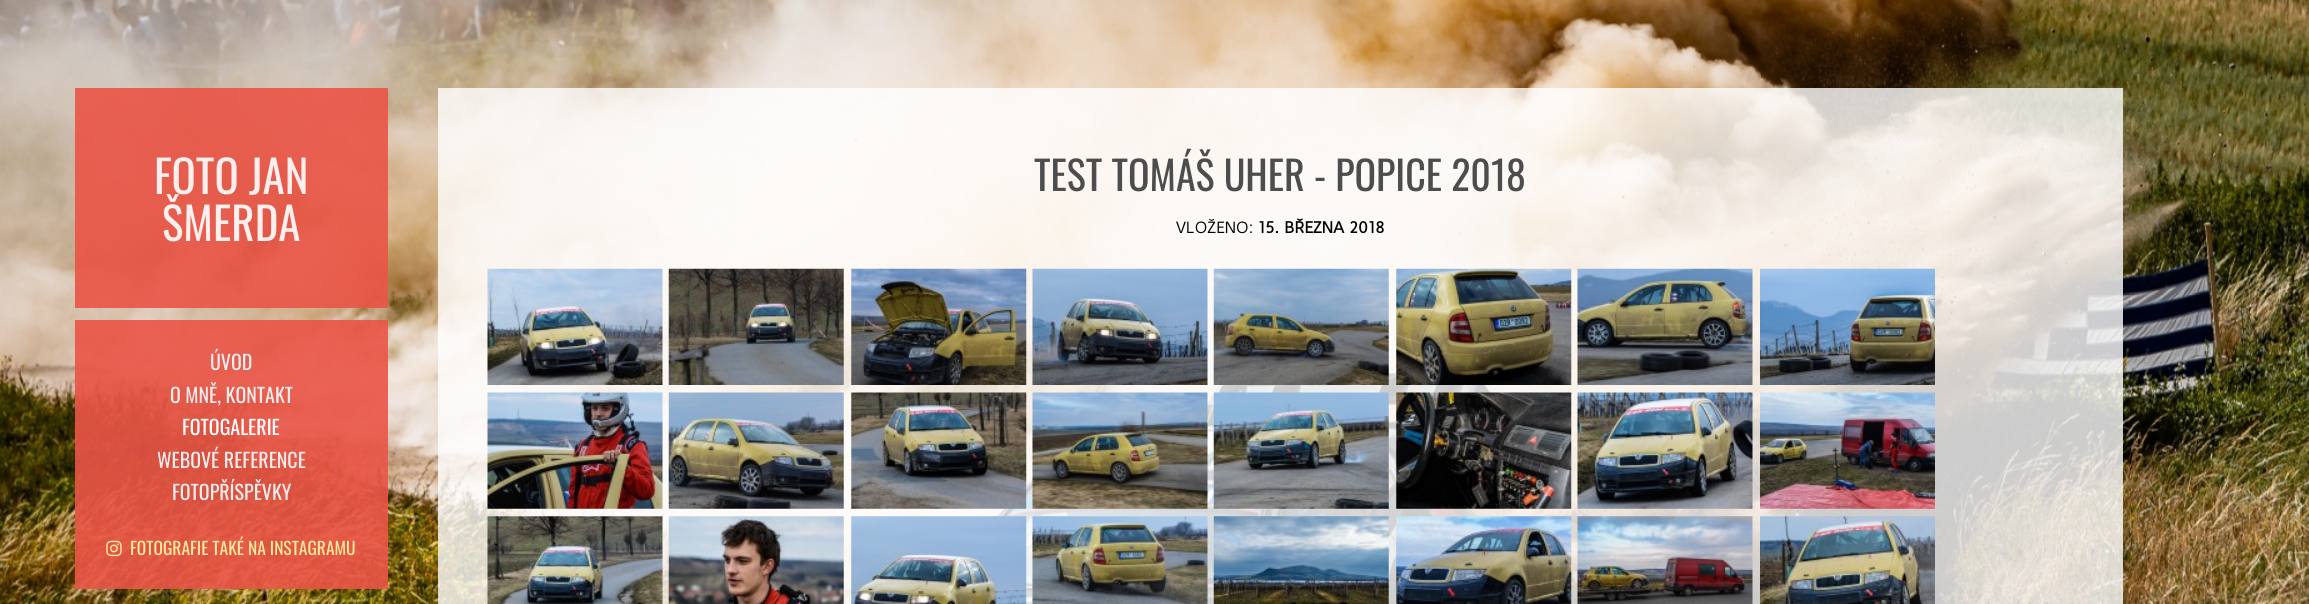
#include <cairo.h>
#include <math.h>
#include <stddef.h>


static void picture(cairo_t *cr, const char *path, double x, double y, double w, double h) {
    cairo_surface_t *image = cairo_image_surface_create_from_png(path);
    cairo_save(cr);
    cairo_set_source_surface(cr, image, x, y);
    cairo_rectangle(cr, x, y, w, h);
    cairo_fill(cr);
    cairo_restore(cr);
    cairo_surface_destroy(image);
}

int main(void) {
    cairo_surface_t *surface = cairo_image_surface_create(CAIRO_FORMAT_RGB24, 2309, 604);
    cairo_t *cr = cairo_create(surface);
    cairo_font_options_t *options = cairo_font_options_create();
    cairo_font_options_set_hint_metrics(options, CAIRO_HINT_METRICS_OFF);
    cairo_font_options_set_hint_style(options, CAIRO_HINT_STYLE_NONE);
    cairo_set_font_options(cr, options);
    cairo_set_miter_limit(cr, 4);
    cairo_set_source_rgb(cr, 1, 1, 1);
    cairo_paint(cr);
    picture(cr, "img1.png", 0, 0, 2309, 604);
    cairo_set_source_rgba(cr, 0.918, 0.333, 0.275, 0.9);
    cairo_rectangle(cr, 75, 88, 313, 220);
    cairo_fill(cr);
    cairo_select_font_face(cr, "Oswald", CAIRO_FONT_SLANT_NORMAL, CAIRO_FONT_WEIGHT_NORMAL);
    cairo_set_font_size(cr, 45);
    cairo_set_source_rgb(cr, 0.988, 0.937, 0.929);
    cairo_move_to(cr, 154, 194);
    cairo_show_text(cr, "FOTO JAN");
    cairo_move_to(cr, 162, 241);
    cairo_show_text(cr, "ŠMERDA");
    cairo_set_source_rgba(cr, 0.918, 0.333, 0.275, 0.9);
    cairo_rectangle(cr, 75, 320, 313, 269);
    cairo_fill(cr);
    cairo_set_font_size(cr, 20);
    cairo_set_source_rgb(cr, 0.929, 0.929, 0.929);
    cairo_move_to(cr, 210, 370);
    cairo_show_text(cr, "ÚVOD");
    cairo_move_to(cr, 170, 403);
    cairo_show_text(cr, "O MNĚ, KONTAKT");
    cairo_set_source_rgb(cr, 1, 1, 1);
    cairo_move_to(cr, 182, 435);
    cairo_show_text(cr, "FOTOGALERIE");
    cairo_set_source_rgb(cr, 0.929, 0.929, 0.929);
    cairo_move_to(cr, 157, 468);
    cairo_show_text(cr, "WEBOVÉ REFERENCE");
    cairo_move_to(cr, 172, 500);
    cairo_show_text(cr, "FOTOPŘÍSPĚVKY");
    picture(cr, "img2.png", 106, 540, 16, 17);
    cairo_set_font_size(cr, 17.5);
    cairo_set_source_rgb(cr, 1, 0.922, 0.62);
    cairo_move_to(cr, 130, 555);
    cairo_show_text(cr, "FOTOGRAFIE TAKÉ NA INSTAGRAMU");
    cairo_set_source_rgba(cr, 1, 1, 1, 0.8);
    cairo_rectangle(cr, 438, 88, 1685, 56);
    cairo_fill(cr);
    cairo_rectangle(cr, 438, 144, 1685, 460);
    cairo_fill(cr);
    cairo_set_font_size(cr, 40);
    cairo_set_source_rgb(cr, 0.302, 0.302, 0.302);
    cairo_move_to(cr, 1034, 191);
    cairo_show_text(cr, "TEST TOMÁŠ UHER - POPICE 2018");
    cairo_select_font_face(cr, "Duru Sans", CAIRO_FONT_SLANT_NORMAL, CAIRO_FONT_WEIGHT_NORMAL);
    cairo_set_font_size(cr, 15);
    cairo_set_source_rgb(cr, 0, 0, 0);
    cairo_move_to(cr, 1176, 233);
    cairo_show_text(cr, "VLOŽENO:");
    cairo_select_font_face(cr, "Duru Sans", CAIRO_FONT_SLANT_NORMAL, CAIRO_FONT_WEIGHT_BOLD);
    cairo_move_to(cr, 1258, 233);
    cairo_show_text(cr, "15. BŘEZNA 2018");
    picture(cr, "img3.png", 487, 268, 176, 117);
    picture(cr, "img4.png", 668, 268, 176, 117);
    picture(cr, "img5.png", 851, 268, 176, 117);
    picture(cr, "img6.png", 1032, 268, 176, 117);
    picture(cr, "img7.png", 1213, 268, 176, 117);
    picture(cr, "img8.png", 1396, 268, 176, 117);
    picture(cr, "img9.png", 1577, 268, 176, 117);
    picture(cr, "img10.png", 1760, 268, 175, 117);
    picture(cr, "img11.png", 487, 392, 176, 117);
    picture(cr, "img12.png", 668, 392, 176, 117);
    picture(cr, "img13.png", 851, 392, 176, 117);
    picture(cr, "img14.png", 1032, 392, 176, 117);
    picture(cr, "img15.png", 1213, 392, 176, 117);
    picture(cr, "img16.png", 1396, 392, 176, 117);
    picture(cr, "img17.png", 1577, 392, 176, 117);
    picture(cr, "img18.png", 1760, 392, 175, 117);
    picture(cr, "img19.png", 487, 516, 176, 88);
    picture(cr, "img20.png", 668, 516, 176, 88);
    picture(cr, "img21.png", 851, 516, 176, 88);
    picture(cr, "img22.png", 1032, 516, 176, 88);
    picture(cr, "img23.png", 1213, 516, 176, 88);
    picture(cr, "img24.png", 1396, 516, 176, 88);
    picture(cr, "img25.png", 1577, 516, 176, 88);
    picture(cr, "img26.png", 1760, 516, 175, 88);
    cairo_surface_write_to_png(surface, "page.png");
    cairo_font_options_destroy(options);
    cairo_destroy(cr);
    cairo_surface_destroy(surface);
    return 0;
}
